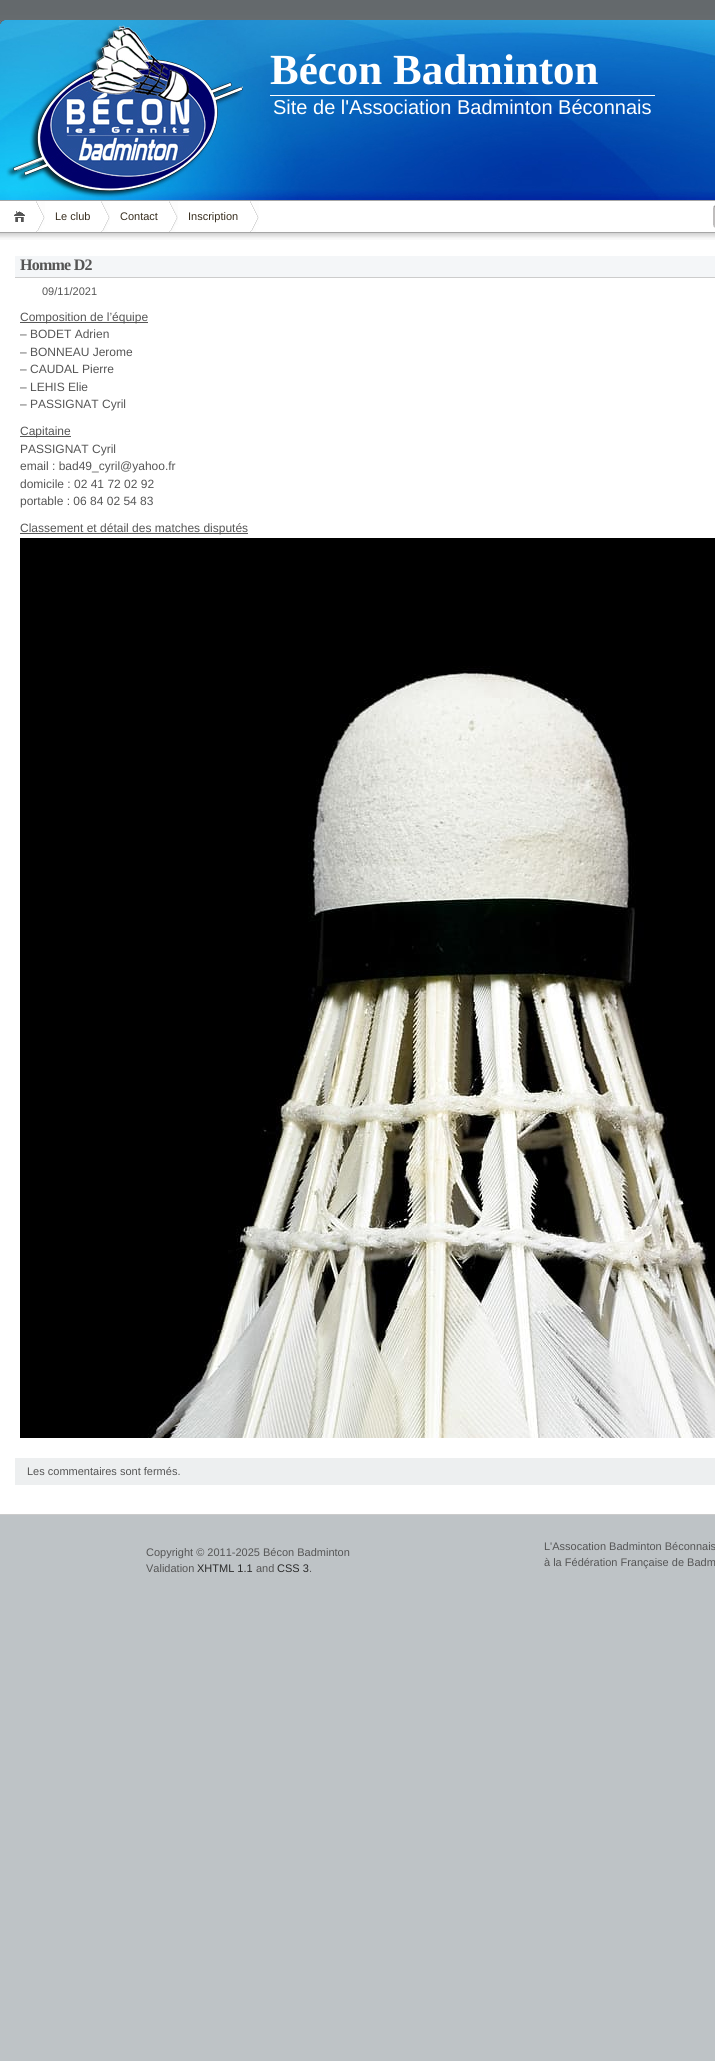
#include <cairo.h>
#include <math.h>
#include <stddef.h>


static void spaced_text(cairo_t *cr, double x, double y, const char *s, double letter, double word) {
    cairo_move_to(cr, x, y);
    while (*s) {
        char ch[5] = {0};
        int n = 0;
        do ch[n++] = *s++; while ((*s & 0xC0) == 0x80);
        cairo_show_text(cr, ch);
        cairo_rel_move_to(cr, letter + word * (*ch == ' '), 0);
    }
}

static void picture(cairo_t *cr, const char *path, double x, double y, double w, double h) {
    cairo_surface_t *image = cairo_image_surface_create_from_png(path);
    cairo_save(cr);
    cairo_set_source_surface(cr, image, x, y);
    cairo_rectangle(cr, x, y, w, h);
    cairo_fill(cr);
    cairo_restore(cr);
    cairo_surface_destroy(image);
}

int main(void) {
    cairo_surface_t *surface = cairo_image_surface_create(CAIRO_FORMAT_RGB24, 715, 2061);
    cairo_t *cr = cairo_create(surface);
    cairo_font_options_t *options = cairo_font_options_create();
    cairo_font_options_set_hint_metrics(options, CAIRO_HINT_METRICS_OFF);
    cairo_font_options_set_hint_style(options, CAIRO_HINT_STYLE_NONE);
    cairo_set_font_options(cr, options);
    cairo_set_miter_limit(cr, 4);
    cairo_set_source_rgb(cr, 0.745, 0.765, 0.776);
    cairo_paint(cr);
    picture(cr, "img1.png", 0, 0, 715, 20);
    picture(cr, "img2.png", 0, 20, 715, 180);
    cairo_set_source_rgb(cr, 0.651, 0.651, 0.651);
    cairo_rectangle(cr, 0, 200, 715, 1);
    cairo_fill(cr);
    cairo_select_font_face(cr, "Liberation Serif", CAIRO_FONT_SLANT_NORMAL, CAIRO_FONT_WEIGHT_BOLD);
    cairo_set_font_size(cr, 43);
    cairo_set_source_rgb(cr, 1, 1, 1);
    cairo_move_to(cr, 270, 84);
    cairo_show_text(cr, "Bécon Badminton");
    cairo_rectangle(cr, 270, 95, 385, 1);
    cairo_fill(cr);
    cairo_select_font_face(cr, "Liberation Sans", CAIRO_FONT_SLANT_NORMAL, CAIRO_FONT_WEIGHT_NORMAL);
    cairo_set_font_size(cr, 20);
    cairo_move_to(cr, 273, 114);
    cairo_show_text(cr, "Site de l'Association Badminton Béconnais");
    cairo_rectangle(cr, 0, 201, 715, 31);
    cairo_fill(cr);
    cairo_set_source_rgb(cr, 0.651, 0.651, 0.651);
    cairo_rectangle(cr, 0, 232, 715, 1);
    cairo_fill(cr);
    picture(cr, "img3.png", 14, 211, 11, 11);
    picture(cr, "img4.png", 36, 201, 9, 31);
    cairo_set_font_size(cr, 11);
    cairo_set_source_rgb(cr, 0.22, 0.18, 0.122);
    cairo_move_to(cr, 55, 220);
    cairo_show_text(cr, "Le club");
    picture(cr, "img5.png", 101, 201, 9, 31);
    cairo_move_to(cr, 120, 220);
    cairo_show_text(cr, "Contact");
    picture(cr, "img6.png", 169, 201, 9, 31);
    cairo_move_to(cr, 188, 220);
    cairo_show_text(cr, "Inscription");
    picture(cr, "img4.png", 250, 201, 9, 31);
    picture(cr, "img7.png", 713, 205, 2, 23);
    cairo_set_source_rgb(cr, 1, 1, 1);
    cairo_rectangle(cr, 0, 240, 715, 1274);
    cairo_fill(cr);
    picture(cr, "img8.png", 0, 233, 715, 7);
    cairo_set_source_rgb(cr, 0.957, 0.961, 0.969);
    cairo_rectangle(cr, 15, 256, 700, 21);
    cairo_fill(cr);
    cairo_set_source_rgb(cr, 0.8, 0.8, 0.8);
    cairo_rectangle(cr, 15, 277, 700, 1);
    cairo_fill(cr);
    cairo_select_font_face(cr, "Liberation Serif", CAIRO_FONT_SLANT_NORMAL, CAIRO_FONT_WEIGHT_BOLD);
    cairo_set_font_size(cr, 16);
    cairo_set_source_rgb(cr, 0.333, 0.333, 0.333);
    spaced_text(cr, 20, 270, "Homme D2", -0.75, 0);
    cairo_select_font_face(cr, "Liberation Sans", CAIRO_FONT_SLANT_NORMAL, CAIRO_FONT_WEIGHT_NORMAL);
    cairo_set_font_size(cr, 11);
    cairo_move_to(cr, 42, 295);
    cairo_show_text(cr, "09/11/2021");
    cairo_rectangle(cr, 20, 322, 128, 1);
    cairo_fill(cr);
    cairo_set_font_size(cr, 12);
    cairo_move_to(cr, 20, 321);
    cairo_show_text(cr, "Composition de l’équipe");
    cairo_move_to(cr, 20, 338);
    cairo_show_text(cr, "– BODET Adrien");
    cairo_move_to(cr, 20, 356);
    cairo_show_text(cr, "– BONNEAU Jerome");
    cairo_move_to(cr, 20, 373);
    cairo_show_text(cr, "– CAUDAL Pierre");
    cairo_move_to(cr, 20, 391);
    cairo_show_text(cr, "– LEHIS Elie");
    cairo_move_to(cr, 20, 408);
    cairo_show_text(cr, "– PASSIGNAT Cyril");
    cairo_rectangle(cr, 20, 436, 51, 1);
    cairo_fill(cr);
    cairo_move_to(cr, 20, 435);
    cairo_show_text(cr, "Capitaine");
    cairo_move_to(cr, 20, 453);
    cairo_show_text(cr, "PASSIGNAT Cyril");
    cairo_move_to(cr, 20, 470);
    cairo_show_text(cr, "email : bad49_cyril@yahoo.fr");
    cairo_move_to(cr, 20, 488);
    cairo_show_text(cr, "domicile : 02 41 72 02 92");
    cairo_move_to(cr, 20, 505);
    cairo_show_text(cr, "portable : 06 84 02 54 83");
    cairo_rectangle(cr, 20, 533, 228, 1);
    cairo_fill(cr);
    cairo_move_to(cr, 20, 532);
    cairo_show_text(cr, "Classement et détail des matches disputés");
    picture(cr, "img9.png", 20, 538, 695, 900);
    cairo_set_source_rgb(cr, 0.929, 0.937, 0.941);
    cairo_rectangle(cr, 15, 1458, 700, 27);
    cairo_fill(cr);
    cairo_set_font_size(cr, 11);
    cairo_set_source_rgb(cr, 0.333, 0.333, 0.333);
    cairo_move_to(cr, 27, 1475);
    cairo_show_text(cr, "Les commentaires sont fermés.");
    cairo_set_source_rgb(cr, 0.8, 0.8, 0.8);
    cairo_rectangle(cr, 0, 1514, 715, 1);
    cairo_fill(cr);
    cairo_set_source_rgb(cr, 0.333, 0.333, 0.333);
    cairo_move_to(cr, 146, 1556);
    cairo_show_text(cr, "Copyright © 2011-2025 Bécon Badminton");
    cairo_move_to(cr, 146, 1572);
    cairo_show_text(cr, "Validation");
    cairo_set_source_rgb(cr, 0.165, 0.165, 0.165);
    cairo_move_to(cr, 197, 1572);
    cairo_show_text(cr, "XHTML 1.1");
    cairo_set_source_rgb(cr, 0.333, 0.333, 0.333);
    cairo_move_to(cr, 256, 1572);
    cairo_show_text(cr, "and");
    cairo_set_source_rgb(cr, 0.165, 0.165, 0.165);
    cairo_move_to(cr, 277, 1572);
    cairo_show_text(cr, "CSS 3");
    cairo_set_source_rgb(cr, 0.333, 0.333, 0.333);
    cairo_move_to(cr, 309, 1572);
    cairo_show_text(cr, ".");
    cairo_move_to(cr, 544, 1550);
    cairo_show_text(cr, "L'Assocation Badminton Béconnais");
    cairo_move_to(cr, 544, 1566);
    cairo_show_text(cr, "à la Fédération Française de Badm");
    cairo_surface_write_to_png(surface, "page.png");
    cairo_font_options_destroy(options);
    cairo_destroy(cr);
    cairo_surface_destroy(surface);
    return 0;
}
